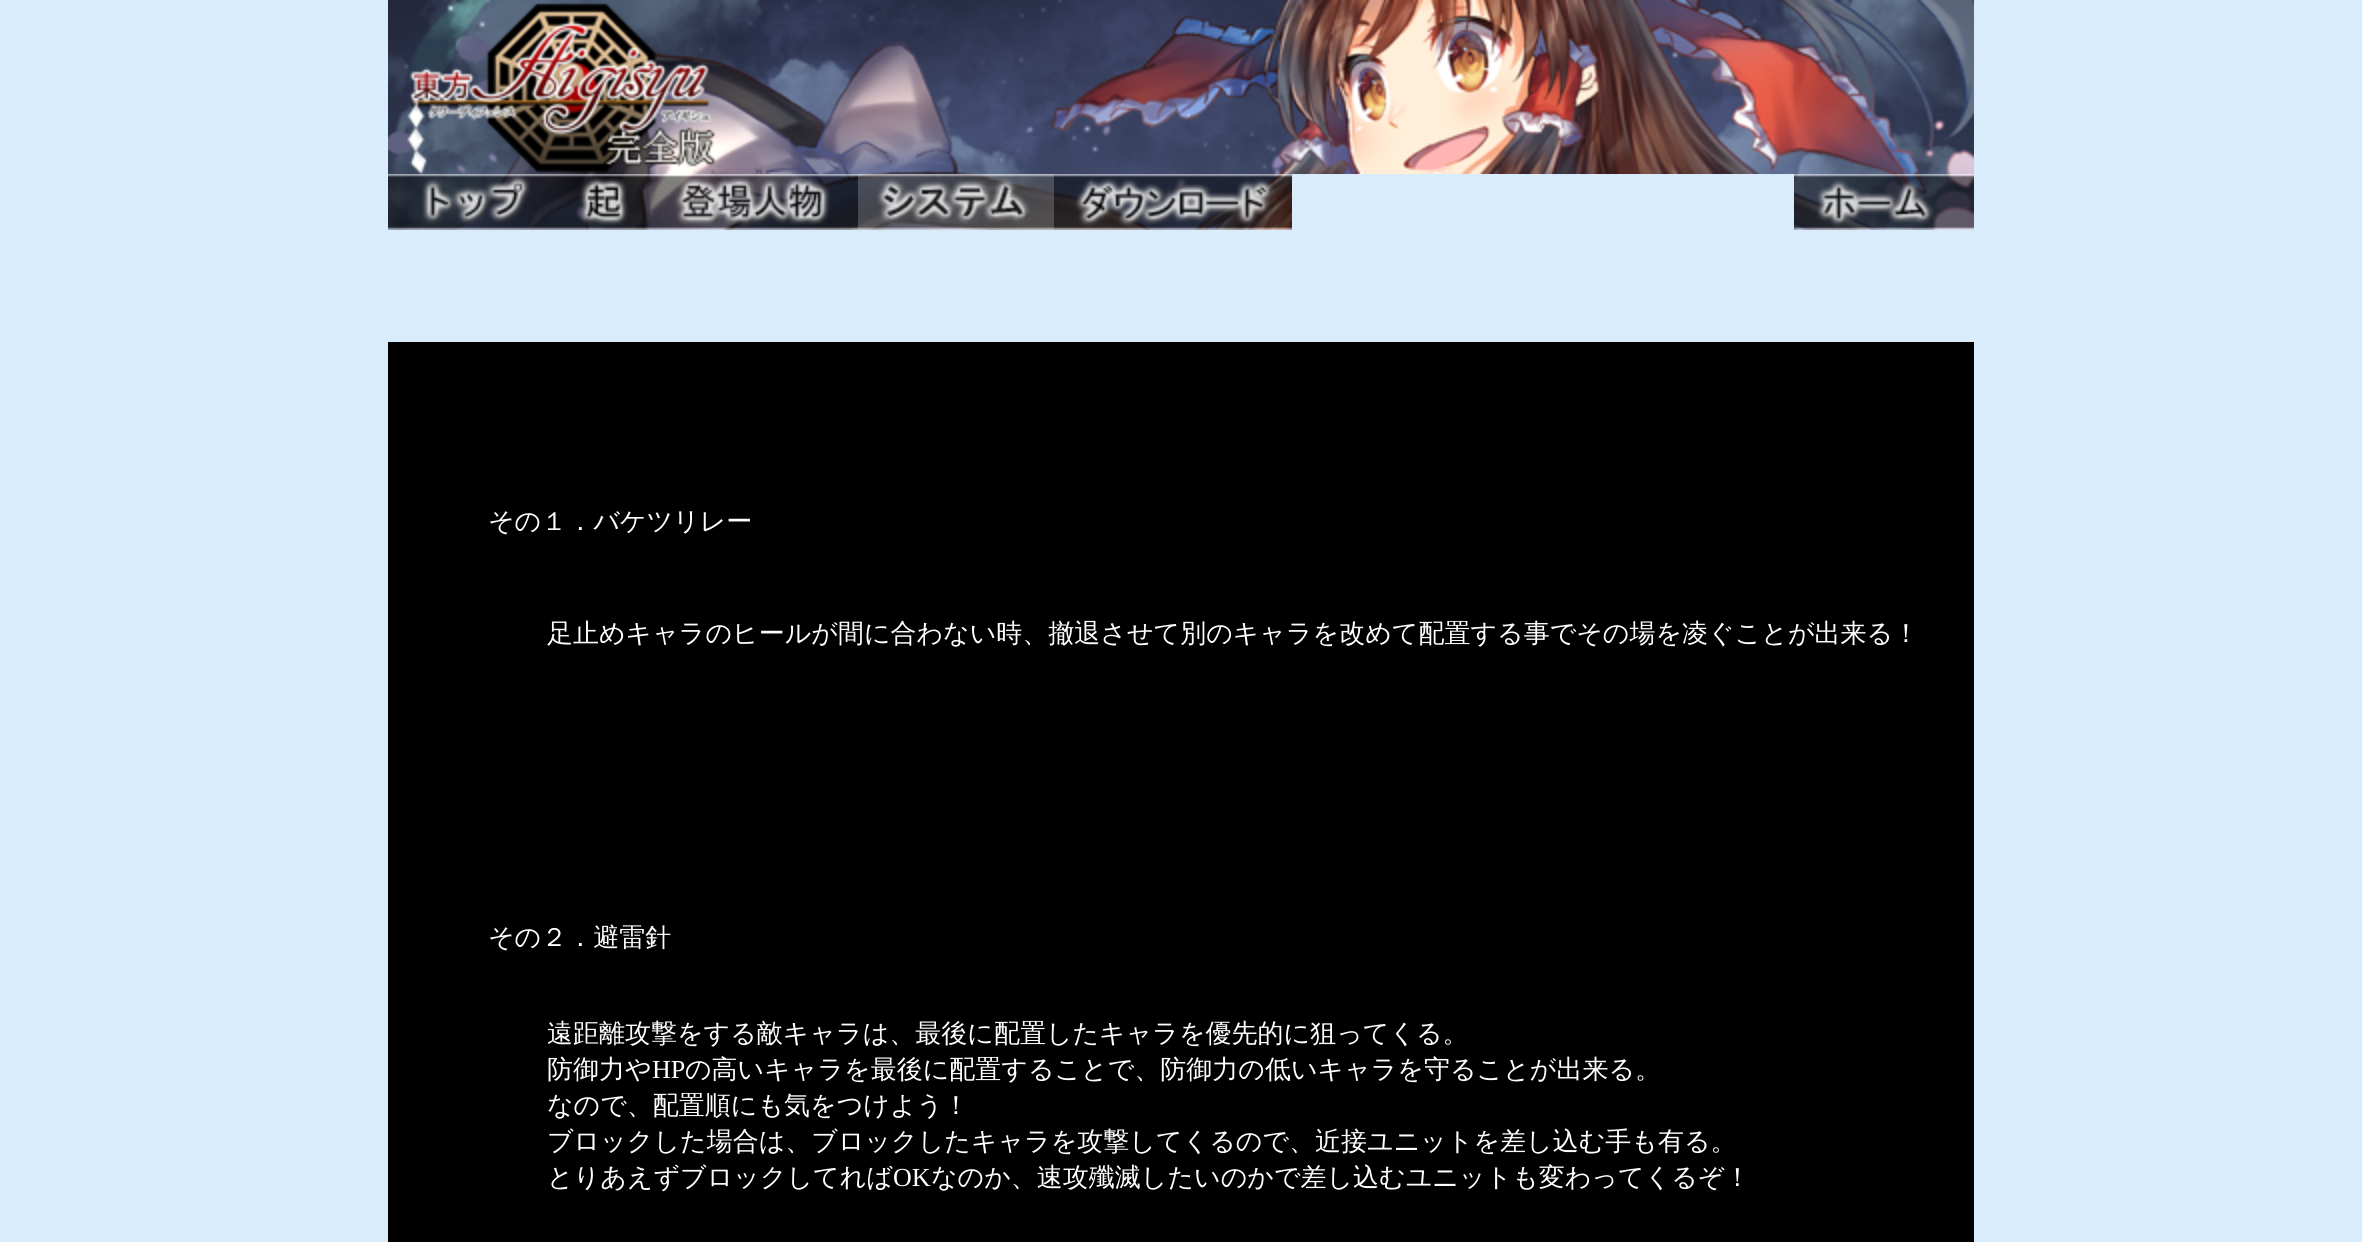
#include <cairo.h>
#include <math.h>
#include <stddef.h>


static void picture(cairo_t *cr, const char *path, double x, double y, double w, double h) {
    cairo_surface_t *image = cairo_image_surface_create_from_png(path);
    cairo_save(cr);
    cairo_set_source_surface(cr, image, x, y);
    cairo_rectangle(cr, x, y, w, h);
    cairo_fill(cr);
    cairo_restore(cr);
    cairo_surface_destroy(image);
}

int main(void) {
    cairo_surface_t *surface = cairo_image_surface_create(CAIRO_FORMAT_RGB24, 2362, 1242);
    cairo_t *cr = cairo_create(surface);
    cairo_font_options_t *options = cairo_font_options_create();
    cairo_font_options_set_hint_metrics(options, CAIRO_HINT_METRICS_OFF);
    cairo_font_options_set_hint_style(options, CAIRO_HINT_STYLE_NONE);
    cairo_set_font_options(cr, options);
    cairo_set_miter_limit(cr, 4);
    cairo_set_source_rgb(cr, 0.851, 0.925, 0.984);
    cairo_paint(cr);
    picture(cr, "img1.png", 388, 0, 1586, 174);
    picture(cr, "img2.png", 388, 174, 170, 56);
    picture(cr, "img3.png", 558, 174, 90, 56);
    picture(cr, "img4.png", 648, 174, 210, 56);
    picture(cr, "img5.png", 858, 174, 196, 56);
    picture(cr, "img6.png", 1054, 174, 238, 56);
    picture(cr, "img7.png", 1794, 174, 180, 56);
    cairo_set_source_rgb(cr, 0, 0, 0);
    cairo_rectangle(cr, 388, 342, 1586, 900);
    cairo_fill(cr);
    cairo_select_font_face(cr, "WenQuanYi Zen Hei Medium", CAIRO_FONT_SLANT_NORMAL, CAIRO_FONT_WEIGHT_NORMAL);
    cairo_set_font_size(cr, 26);
    cairo_set_source_rgb(cr, 1, 1, 1);
    cairo_move_to(cr, 488, 530);
    cairo_show_text(cr, "その１．バケツリレー");
    cairo_move_to(cr, 547, 642);
    cairo_show_text(cr, "足止めキャラのヒールが間に合わない時、撤退させて別のキャラを改めて配置する事でその場を凌ぐことが出来る！");
    cairo_move_to(cr, 488, 946);
    cairo_show_text(cr, "その２．避雷針");
    cairo_move_to(cr, 547, 1042);
    cairo_show_text(cr, "遠距離攻撃をする敵キャラは、最後に配置したキャラを優先的に狙ってくる。");
    cairo_move_to(cr, 547, 1078);
    cairo_show_text(cr, "防御力や");
    cairo_select_font_face(cr, "Liberation Serif", CAIRO_FONT_SLANT_NORMAL, CAIRO_FONT_WEIGHT_NORMAL);
    cairo_move_to(cr, 652, 1078);
    cairo_show_text(cr, "HP");
    cairo_select_font_face(cr, "WenQuanYi Zen Hei Medium", CAIRO_FONT_SLANT_NORMAL, CAIRO_FONT_WEIGHT_NORMAL);
    cairo_move_to(cr, 685, 1078);
    cairo_show_text(cr, "の高いキャラを最後に配置することで、防御力の低いキャラを守ることが出来る。");
    cairo_move_to(cr, 547, 1114);
    cairo_show_text(cr, "なので、配置順にも気をつけよう！");
    cairo_move_to(cr, 547, 1150);
    cairo_show_text(cr, "ブロックした場合は、ブロックしたキャラを攻撃してくるので、近接ユニットを差し込む手も有る。");
    cairo_move_to(cr, 547, 1186);
    cairo_show_text(cr, "とりあえずブロックしてれば");
    cairo_select_font_face(cr, "Liberation Serif", CAIRO_FONT_SLANT_NORMAL, CAIRO_FONT_WEIGHT_NORMAL);
    cairo_move_to(cr, 893, 1186);
    cairo_show_text(cr, "OK");
    cairo_select_font_face(cr, "WenQuanYi Zen Hei Medium", CAIRO_FONT_SLANT_NORMAL, CAIRO_FONT_WEIGHT_NORMAL);
    cairo_move_to(cr, 931, 1186);
    cairo_show_text(cr, "なのか、速攻殲滅したいのかで差し込むユニットも変わってくるぞ！");
    cairo_surface_write_to_png(surface, "page.png");
    cairo_font_options_destroy(options);
    cairo_destroy(cr);
    cairo_surface_destroy(surface);
    return 0;
}
